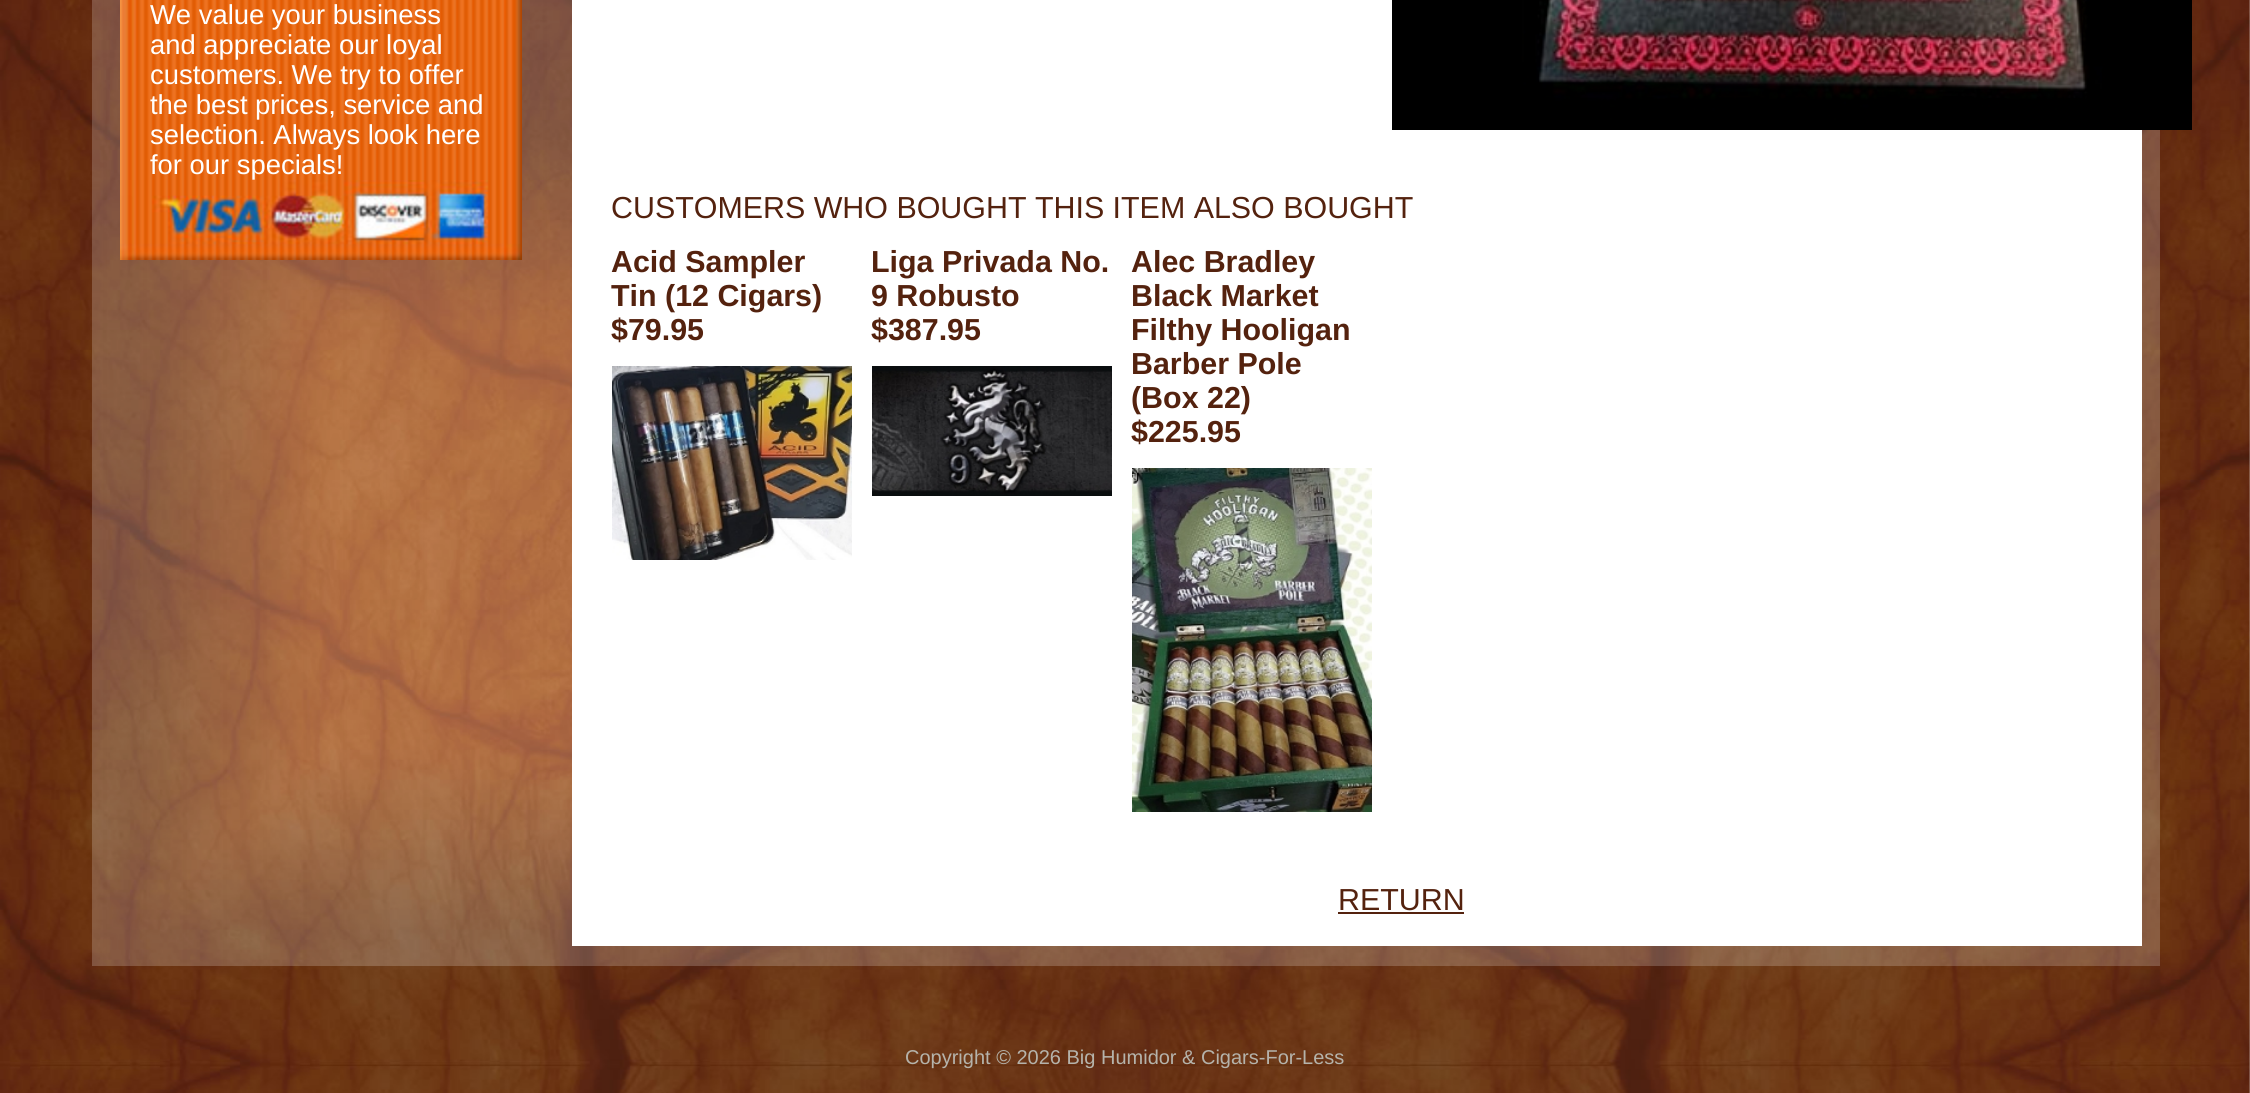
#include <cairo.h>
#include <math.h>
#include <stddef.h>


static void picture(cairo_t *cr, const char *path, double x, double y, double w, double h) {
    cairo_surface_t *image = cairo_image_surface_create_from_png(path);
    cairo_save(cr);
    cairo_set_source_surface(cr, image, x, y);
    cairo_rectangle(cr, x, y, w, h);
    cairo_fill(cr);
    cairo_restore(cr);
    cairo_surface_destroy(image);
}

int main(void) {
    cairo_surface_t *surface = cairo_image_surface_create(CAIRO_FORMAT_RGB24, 2250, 1093);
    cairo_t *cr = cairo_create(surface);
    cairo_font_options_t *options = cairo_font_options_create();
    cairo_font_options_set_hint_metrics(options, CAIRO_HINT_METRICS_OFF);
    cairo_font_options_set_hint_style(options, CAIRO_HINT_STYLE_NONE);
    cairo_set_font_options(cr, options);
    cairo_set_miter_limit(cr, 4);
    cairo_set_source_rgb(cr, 1, 1, 1);
    cairo_paint(cr);
    picture(cr, "img1.png", 0, 0, 2250, 1093);
    picture(cr, "img2.png", 92, 0, 2068, 966);
    picture(cr, "img3.png", 120, 0, 402, 180);
    cairo_select_font_face(cr, "Liberation Sans", CAIRO_FONT_SLANT_NORMAL, CAIRO_FONT_WEIGHT_NORMAL);
    cairo_set_font_size(cr, 27.4);
    cairo_set_source_rgb(cr, 1, 1, 1);
    cairo_move_to(cr, 150, 24);
    cairo_show_text(cr, "We value your business");
    cairo_move_to(cr, 150, 54);
    cairo_show_text(cr, "and appreciate our loyal");
    cairo_move_to(cr, 150, 84);
    cairo_show_text(cr, "customers. We try to offer");
    cairo_move_to(cr, 150, 114);
    cairo_show_text(cr, "the best prices, service and");
    cairo_move_to(cr, 150, 144);
    cairo_show_text(cr, "selection. Always look here");
    cairo_move_to(cr, 150, 174);
    cairo_show_text(cr, "for our specials!");
    picture(cr, "img4.png", 120, 180, 402, 80);
    cairo_rectangle(cr, 572, 0, 1570, 946);
    cairo_fill(cr);
    picture(cr, "img5.png", 1392, 0, 800, 130);
    cairo_set_font_size(cr, 30.4);
    cairo_set_source_rgb(cr, 0.329, 0.133, 0.055);
    cairo_move_to(cr, 611, 218);
    cairo_show_text(cr, "CUSTOMERS WHO BOUGHT THIS ITEM ALSO BOUGHT");
    cairo_select_font_face(cr, "Liberation Sans", CAIRO_FONT_SLANT_NORMAL, CAIRO_FONT_WEIGHT_BOLD);
    cairo_move_to(cr, 611, 272);
    cairo_show_text(cr, "Acid Sampler");
    cairo_move_to(cr, 611, 306);
    cairo_show_text(cr, "Tin (12 Cigars)");
    cairo_move_to(cr, 611, 340);
    cairo_show_text(cr, "$79.95");
    picture(cr, "img6.png", 612, 366, 240, 194);
    cairo_move_to(cr, 871, 272);
    cairo_show_text(cr, "Liga Privada No.");
    cairo_move_to(cr, 871, 306);
    cairo_show_text(cr, "9 Robusto");
    cairo_move_to(cr, 871, 340);
    cairo_show_text(cr, "$387.95");
    picture(cr, "img7.png", 872, 366, 240, 130);
    cairo_move_to(cr, 1131, 272);
    cairo_show_text(cr, "Alec Bradley");
    cairo_move_to(cr, 1131, 306);
    cairo_show_text(cr, "Black Market");
    cairo_move_to(cr, 1131, 340);
    cairo_show_text(cr, "Filthy Hooligan");
    cairo_move_to(cr, 1131, 374);
    cairo_show_text(cr, "Barber Pole");
    cairo_move_to(cr, 1131, 408);
    cairo_show_text(cr, "(Box 22)");
    cairo_move_to(cr, 1131, 442);
    cairo_show_text(cr, "$225.95");
    picture(cr, "img8.png", 1132, 468, 240, 344);
    cairo_select_font_face(cr, "Liberation Sans", CAIRO_FONT_SLANT_NORMAL, CAIRO_FONT_WEIGHT_NORMAL);
    cairo_move_to(cr, 1338, 910);
    cairo_show_text(cr, "RETURN");
    cairo_rectangle(cr, 1338, 912, 126, 2);
    cairo_fill(cr);
    cairo_set_font_size(cr, 20);
    cairo_set_source_rgb(cr, 0.71, 0.702, 0.671);
    cairo_move_to(cr, 905, 1064);
    cairo_show_text(cr, "Copyright © 2026 Big Humidor & Cigars-For-Less");
    cairo_surface_write_to_png(surface, "page.png");
    cairo_font_options_destroy(options);
    cairo_destroy(cr);
    cairo_surface_destroy(surface);
    return 0;
}
